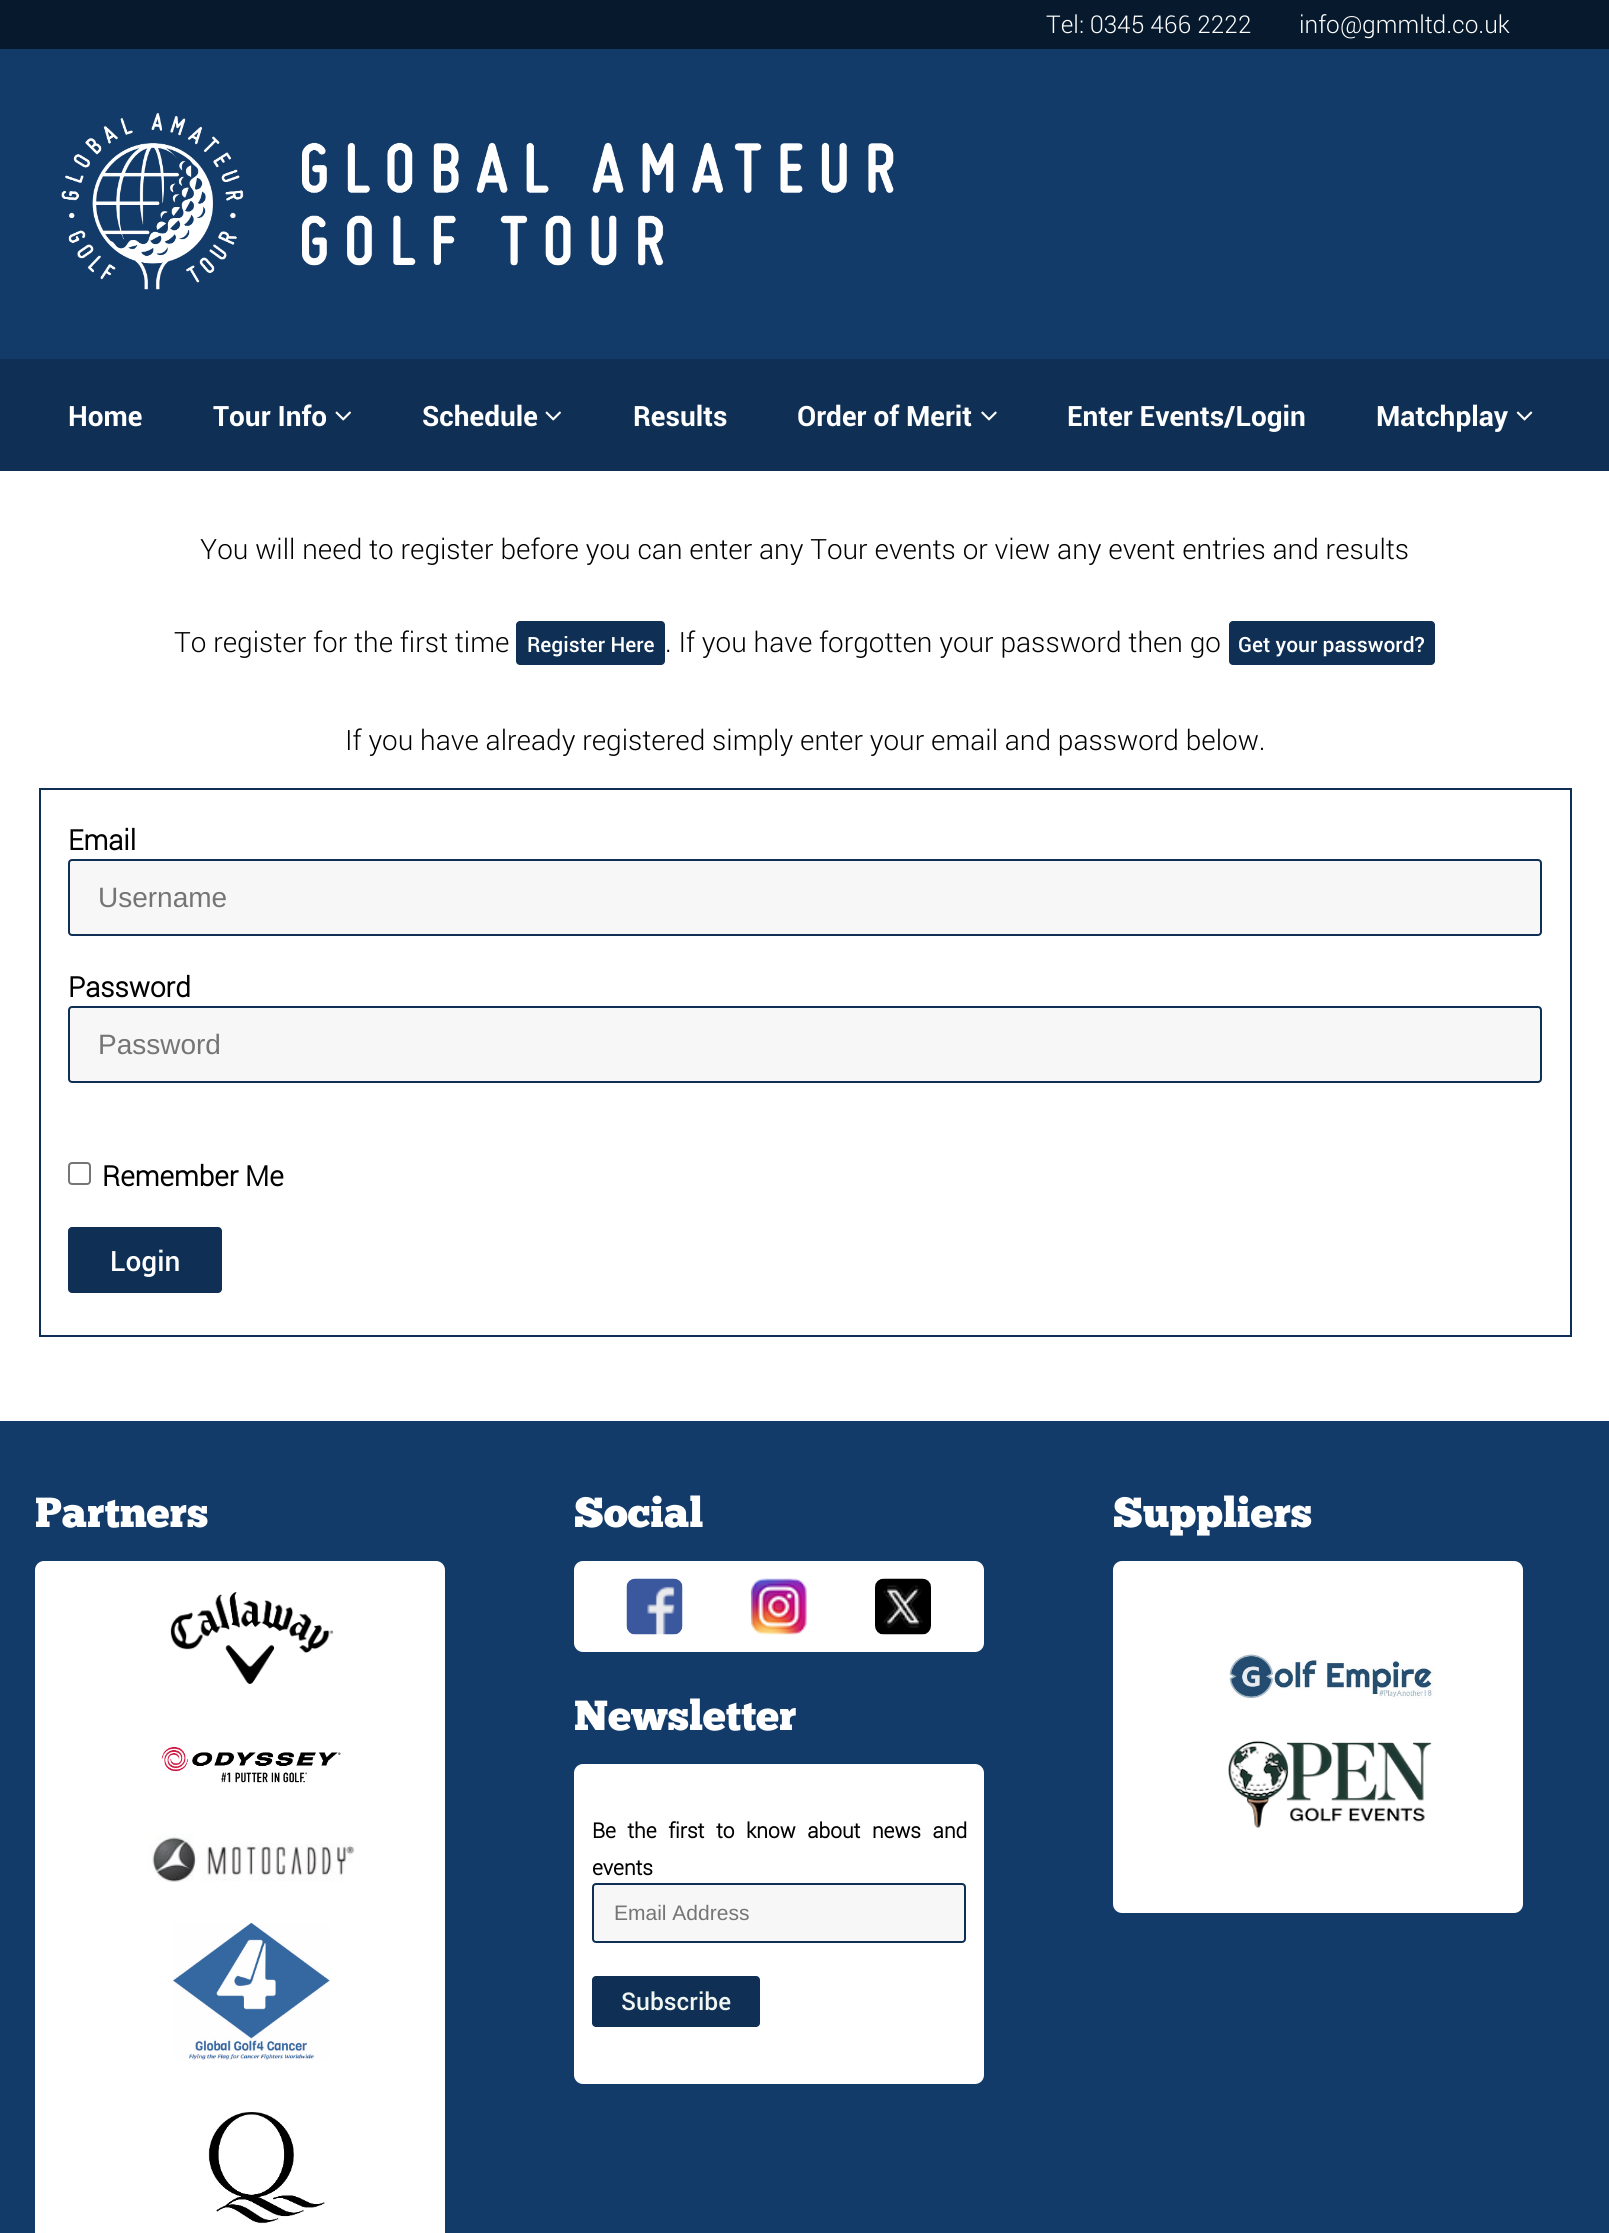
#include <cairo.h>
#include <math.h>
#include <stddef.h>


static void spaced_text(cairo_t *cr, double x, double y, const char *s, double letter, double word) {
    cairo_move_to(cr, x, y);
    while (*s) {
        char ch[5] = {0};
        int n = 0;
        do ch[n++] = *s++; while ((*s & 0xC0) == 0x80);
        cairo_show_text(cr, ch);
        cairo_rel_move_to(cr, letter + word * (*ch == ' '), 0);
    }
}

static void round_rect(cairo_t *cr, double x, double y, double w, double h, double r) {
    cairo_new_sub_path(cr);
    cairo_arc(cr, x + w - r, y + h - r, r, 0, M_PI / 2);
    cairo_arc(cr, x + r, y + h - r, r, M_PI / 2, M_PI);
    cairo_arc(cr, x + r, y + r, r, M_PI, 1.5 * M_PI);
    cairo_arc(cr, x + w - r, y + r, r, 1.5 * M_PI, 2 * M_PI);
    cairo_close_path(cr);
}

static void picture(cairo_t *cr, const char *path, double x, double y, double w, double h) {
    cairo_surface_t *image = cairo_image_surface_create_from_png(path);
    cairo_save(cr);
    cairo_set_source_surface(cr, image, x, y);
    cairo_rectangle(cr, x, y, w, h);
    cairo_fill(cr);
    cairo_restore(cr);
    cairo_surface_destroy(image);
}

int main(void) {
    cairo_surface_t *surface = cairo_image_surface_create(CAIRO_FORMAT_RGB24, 1609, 2233);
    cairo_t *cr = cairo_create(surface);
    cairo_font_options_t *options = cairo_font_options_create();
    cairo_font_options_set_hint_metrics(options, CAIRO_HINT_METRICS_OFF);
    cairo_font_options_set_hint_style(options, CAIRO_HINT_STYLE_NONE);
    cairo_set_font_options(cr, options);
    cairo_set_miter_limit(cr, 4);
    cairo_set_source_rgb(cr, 0.031, 0.098, 0.173);
    cairo_paint(cr);
    cairo_select_font_face(cr, "Roboto Light", CAIRO_FONT_SLANT_NORMAL, CAIRO_FONT_WEIGHT_NORMAL);
    cairo_set_font_size(cr, 24.5);
    cairo_set_source_rgb(cr, 1, 1, 1);
    cairo_move_to(cr, 1046, 33);
    cairo_show_text(cr, "Tel: 0345 466 2222");
    cairo_move_to(cr, 1299, 33);
    cairo_show_text(cr, "info@gmmltd.co.uk");
    cairo_set_source_rgb(cr, 0.075, 0.231, 0.412);
    cairo_rectangle(cr, 0, 49, 1609, 310);
    cairo_fill(cr);
    picture(cr, "img1.png", 61, 113, 833, 177);
    cairo_set_source_rgb(cr, 0.059, 0.188, 0.329);
    cairo_rectangle(cr, 0, 359, 1609, 112);
    cairo_fill(cr);
    cairo_select_font_face(cr, "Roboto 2", CAIRO_FONT_SLANT_NORMAL, CAIRO_FONT_WEIGHT_BOLD);
    cairo_set_font_size(cr, 28);
    cairo_set_source_rgb(cr, 1, 1, 1);
    cairo_move_to(cr, 68, 426);
    cairo_show_text(cr, "Home");
    cairo_move_to(cr, 213, 426);
    cairo_show_text(cr, "Tour Info");
    picture(cr, "img2.png", 335, 411, 16, 10);
    cairo_move_to(cr, 422, 426);
    cairo_show_text(cr, "Schedule");
    picture(cr, "img2.png", 545, 411, 16, 10);
    cairo_move_to(cr, 633, 426);
    cairo_show_text(cr, "Results");
    cairo_move_to(cr, 797, 426);
    cairo_show_text(cr, "Order of Merit");
    picture(cr, "img3.png", 981, 411, 16, 10);
    cairo_move_to(cr, 1067, 426);
    cairo_show_text(cr, "Enter Events/Login");
    cairo_move_to(cr, 1376, 426);
    cairo_show_text(cr, "Matchplay");
    picture(cr, "img4.png", 1516, 411, 17, 10);
    cairo_rectangle(cr, 0, 471, 1609, 950);
    cairo_fill(cr);
    cairo_select_font_face(cr, "Roboto Light", CAIRO_FONT_SLANT_NORMAL, CAIRO_FONT_WEIGHT_NORMAL);
    cairo_set_source_rgb(cr, 0, 0, 0);
    cairo_move_to(cr, 200, 559);
    cairo_show_text(cr, "You will need to register before you can enter any Tour events or view any event entries and results");
    cairo_move_to(cr, 174, 652);
    cairo_show_text(cr, "To register for the first time");
    cairo_set_source_rgb(cr, 0.059, 0.188, 0.329);
    round_rect(cr, 516, 621, 149, 44, 4);
    cairo_fill(cr);
    cairo_select_font_face(cr, "Roboto Medium", CAIRO_FONT_SLANT_NORMAL, CAIRO_FONT_WEIGHT_NORMAL);
    cairo_set_font_size(cr, 21);
    cairo_set_source_rgb(cr, 1, 1, 1);
    cairo_move_to(cr, 527, 652);
    cairo_show_text(cr, "Register Here");
    cairo_select_font_face(cr, "Roboto Light", CAIRO_FONT_SLANT_NORMAL, CAIRO_FONT_WEIGHT_NORMAL);
    cairo_set_font_size(cr, 28);
    cairo_set_source_rgb(cr, 0, 0, 0);
    cairo_move_to(cr, 665, 652);
    cairo_show_text(cr, ". If you have forgotten your password then go");
    cairo_set_source_rgb(cr, 0.059, 0.188, 0.329);
    round_rect(cr, 1229, 621, 206, 44, 4);
    cairo_fill(cr);
    cairo_select_font_face(cr, "Roboto Medium", CAIRO_FONT_SLANT_NORMAL, CAIRO_FONT_WEIGHT_NORMAL);
    cairo_set_font_size(cr, 21);
    cairo_set_source_rgb(cr, 1, 1, 1);
    cairo_move_to(cr, 1238, 652);
    cairo_show_text(cr, "Get your password?");
    cairo_select_font_face(cr, "Roboto Light", CAIRO_FONT_SLANT_NORMAL, CAIRO_FONT_WEIGHT_NORMAL);
    cairo_set_font_size(cr, 28);
    cairo_set_source_rgb(cr, 0, 0, 0);
    cairo_move_to(cr, 345, 750);
    cairo_show_text(cr, "If you have already registered simply enter your email and password below.");
    cairo_rectangle(cr, 40, 789, 1531, 547);
    cairo_set_source_rgb(cr, 0.059, 0.188, 0.329);
    cairo_stroke(cr);
    cairo_select_font_face(cr, "Roboto", CAIRO_FONT_SLANT_NORMAL, CAIRO_FONT_WEIGHT_BOLD);
    cairo_set_source_rgb(cr, 0, 0, 0);
    cairo_move_to(cr, 68, 850);
    cairo_show_text(cr, "Email");
    cairo_set_source_rgb(cr, 0.965, 0.965, 0.965);
    round_rect(cr, 69, 860, 1472, 75, 3);
    cairo_fill_preserve(cr);
    cairo_set_source_rgb(cr, 0.059, 0.188, 0.329);
    cairo_stroke(cr);
    cairo_select_font_face(cr, "Liberation Sans", CAIRO_FONT_SLANT_NORMAL, CAIRO_FONT_WEIGHT_NORMAL);
    cairo_set_source_rgb(cr, 0.459, 0.459, 0.459);
    cairo_move_to(cr, 98, 907);
    cairo_show_text(cr, "Username");
    cairo_select_font_face(cr, "Roboto", CAIRO_FONT_SLANT_NORMAL, CAIRO_FONT_WEIGHT_BOLD);
    cairo_set_source_rgb(cr, 0, 0, 0);
    cairo_move_to(cr, 68, 997);
    cairo_show_text(cr, "Password");
    cairo_set_source_rgb(cr, 0.965, 0.965, 0.965);
    round_rect(cr, 69, 1007, 1472, 75, 3);
    cairo_fill_preserve(cr);
    cairo_set_source_rgb(cr, 0.059, 0.188, 0.329);
    cairo_stroke(cr);
    cairo_select_font_face(cr, "Liberation Sans", CAIRO_FONT_SLANT_NORMAL, CAIRO_FONT_WEIGHT_NORMAL);
    cairo_set_source_rgb(cr, 0.459, 0.459, 0.459);
    cairo_move_to(cr, 98, 1054);
    cairo_show_text(cr, "Password");
    round_rect(cr, 69, 1163, 21, 21, 3);
    cairo_set_source_rgb(cr, 0.463, 0.463, 0.463);
    cairo_stroke(cr);
    cairo_select_font_face(cr, "Roboto", CAIRO_FONT_SLANT_NORMAL, CAIRO_FONT_WEIGHT_BOLD);
    cairo_set_source_rgb(cr, 0, 0, 0);
    cairo_move_to(cr, 102, 1186);
    cairo_show_text(cr, "Remember Me");
    cairo_set_source_rgb(cr, 0.059, 0.188, 0.329);
    round_rect(cr, 68, 1227, 154, 66, 4);
    cairo_fill(cr);
    cairo_select_font_face(cr, "Roboto Medium", CAIRO_FONT_SLANT_NORMAL, CAIRO_FONT_WEIGHT_NORMAL);
    cairo_set_source_rgb(cr, 1, 1, 1);
    cairo_move_to(cr, 110, 1271);
    cairo_show_text(cr, "Login");
    cairo_set_source_rgb(cr, 0.075, 0.231, 0.412);
    cairo_rectangle(cr, 0, 1421, 1609, 812);
    cairo_fill(cr);
    cairo_select_font_face(cr, "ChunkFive", CAIRO_FONT_SLANT_NORMAL, CAIRO_FONT_WEIGHT_NORMAL);
    cairo_set_font_size(cr, 42);
    cairo_set_source_rgb(cr, 1, 1, 1);
    cairo_move_to(cr, 35, 1527);
    cairo_show_text(cr, "Partners");
    round_rect(cr, 35, 1561, 410, 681, 9);
    cairo_fill(cr);
    picture(cr, "img5.png", 170, 1592, 164, 92);
    picture(cr, "img6.png", 161, 1746, 180, 37);
    picture(cr, "img7.png", 149, 1834, 206, 48);
    picture(cr, "img8.png", 173, 1922, 157, 138);
    picture(cr, "img9.png", 208, 2112, 117, 112);
    cairo_move_to(cr, 574, 1527);
    cairo_show_text(cr, "Social");
    round_rect(cr, 574, 1561, 410, 91, 9);
    cairo_fill(cr);
    picture(cr, "img10.png", 626, 1578, 57, 57);
    picture(cr, "img11.png", 750, 1578, 57, 57);
    picture(cr, "img12.png", 875, 1578, 56, 57);
    cairo_move_to(cr, 574, 1730);
    cairo_show_text(cr, "Newsletter");
    round_rect(cr, 574, 1764, 410, 320, 9);
    cairo_fill(cr);
    cairo_select_font_face(cr, "Roboto", CAIRO_FONT_SLANT_NORMAL, CAIRO_FONT_WEIGHT_BOLD);
    cairo_set_font_size(cr, 21);
    cairo_set_source_rgb(cr, 0, 0, 0);
    spaced_text(cr, 592, 1838, "Be the first to know about news and", 0, 6.5);
    cairo_move_to(cr, 592, 1875);
    cairo_show_text(cr, "events");
    cairo_set_source_rgb(cr, 0.965, 0.965, 0.965);
    round_rect(cr, 593, 1884, 372, 58, 3);
    cairo_fill_preserve(cr);
    cairo_set_source_rgb(cr, 0.059, 0.188, 0.329);
    cairo_stroke(cr);
    cairo_select_font_face(cr, "Liberation Sans", CAIRO_FONT_SLANT_NORMAL, CAIRO_FONT_WEIGHT_NORMAL);
    cairo_set_source_rgb(cr, 0.459, 0.459, 0.459);
    cairo_move_to(cr, 614, 1920);
    cairo_show_text(cr, "Email Address");
    cairo_set_source_rgb(cr, 0.059, 0.188, 0.329);
    round_rect(cr, 592, 1976, 168, 51, 4);
    cairo_fill(cr);
    cairo_select_font_face(cr, "Roboto Medium", CAIRO_FONT_SLANT_NORMAL, CAIRO_FONT_WEIGHT_NORMAL);
    cairo_set_font_size(cr, 24.5);
    cairo_set_source_rgb(cr, 0.941, 0.965, 0.953);
    cairo_move_to(cr, 621, 2010);
    cairo_show_text(cr, "Subscribe");
    cairo_select_font_face(cr, "ChunkFive", CAIRO_FONT_SLANT_NORMAL, CAIRO_FONT_WEIGHT_NORMAL);
    cairo_set_font_size(cr, 42);
    cairo_set_source_rgb(cr, 1, 1, 1);
    cairo_move_to(cr, 1113, 1527);
    cairo_show_text(cr, "Suppliers");
    round_rect(cr, 1113, 1561, 410, 352, 9);
    cairo_fill(cr);
    picture(cr, "img13.png", 1229, 1652, 205, 47);
    picture(cr, "img14.png", 1228, 1740, 204, 88);
    cairo_surface_write_to_png(surface, "page.png");
    cairo_font_options_destroy(options);
    cairo_destroy(cr);
    cairo_surface_destroy(surface);
    return 0;
}
